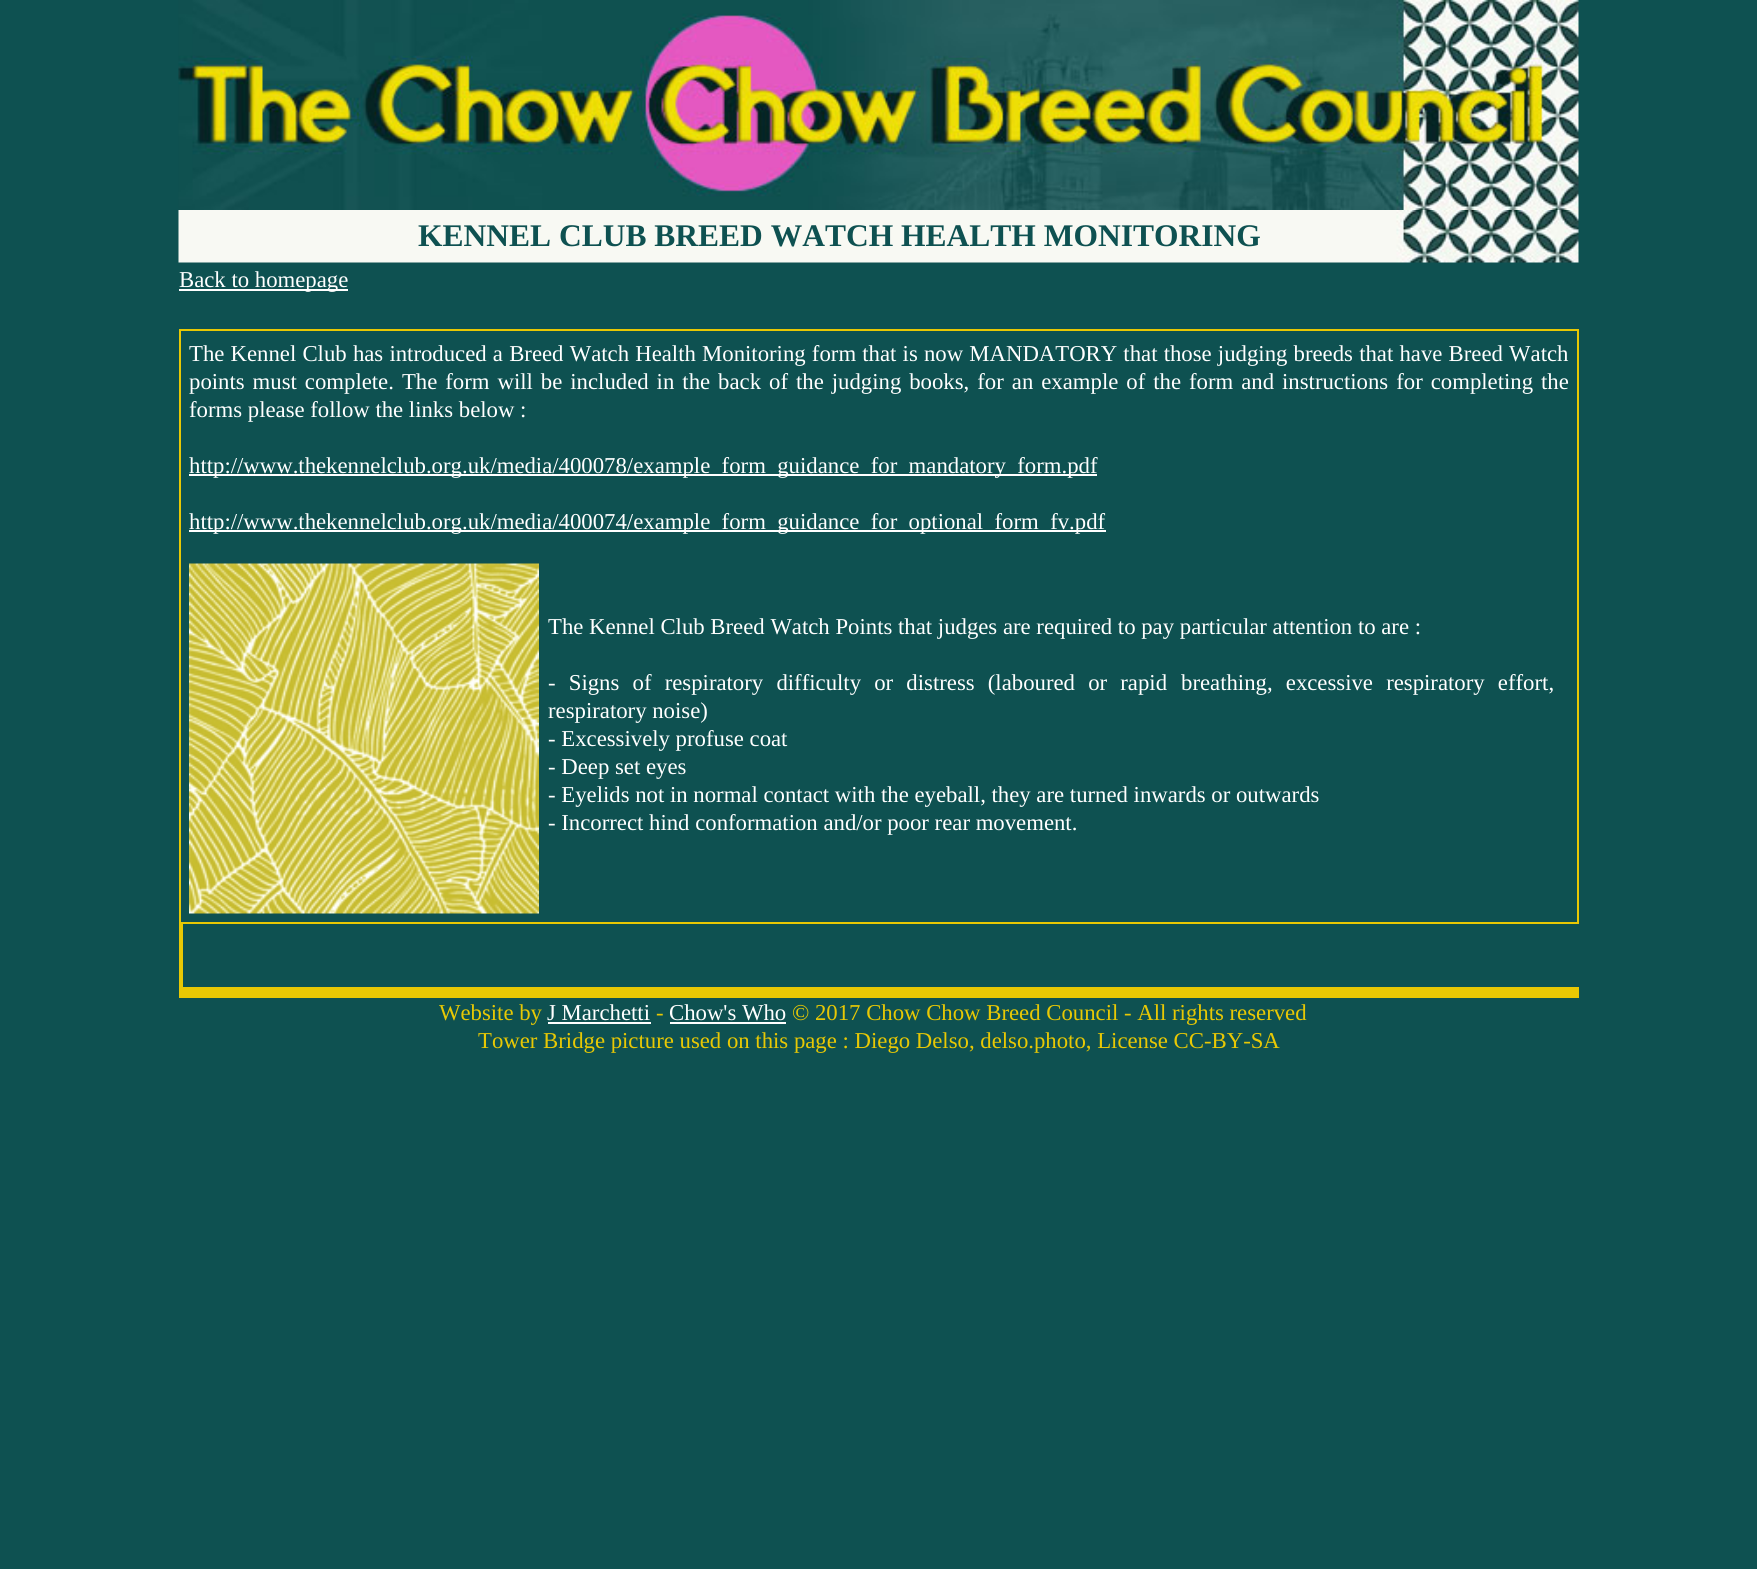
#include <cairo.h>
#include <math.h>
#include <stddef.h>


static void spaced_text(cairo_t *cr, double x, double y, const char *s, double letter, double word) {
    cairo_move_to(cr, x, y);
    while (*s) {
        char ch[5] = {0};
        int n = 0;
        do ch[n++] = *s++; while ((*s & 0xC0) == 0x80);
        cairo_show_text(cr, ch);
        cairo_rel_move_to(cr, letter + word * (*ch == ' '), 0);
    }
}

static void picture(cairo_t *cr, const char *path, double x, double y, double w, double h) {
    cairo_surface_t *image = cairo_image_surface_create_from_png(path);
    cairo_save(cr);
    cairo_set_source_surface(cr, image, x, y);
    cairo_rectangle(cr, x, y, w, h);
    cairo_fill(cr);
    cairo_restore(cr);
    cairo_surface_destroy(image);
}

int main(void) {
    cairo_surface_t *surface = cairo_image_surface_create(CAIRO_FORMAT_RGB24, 1757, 1569);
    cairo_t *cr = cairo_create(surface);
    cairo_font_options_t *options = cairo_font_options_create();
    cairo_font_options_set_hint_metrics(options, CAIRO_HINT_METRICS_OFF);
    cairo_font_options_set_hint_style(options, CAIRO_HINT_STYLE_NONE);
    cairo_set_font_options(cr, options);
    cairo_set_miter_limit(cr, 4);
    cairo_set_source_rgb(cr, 0.055, 0.318, 0.318);
    cairo_paint(cr);
    picture(cr, "img1.png", 178, 0, 1401, 210);
    picture(cr, "img2.png", 178, 210, 1401, 53);
    cairo_select_font_face(cr, "Liberation Serif", CAIRO_FONT_SLANT_NORMAL, CAIRO_FONT_WEIGHT_BOLD);
    cairo_set_font_size(cr, 31.5);
    cairo_set_source_rgb(cr, 0.055, 0.318, 0.318);
    cairo_move_to(cr, 418, 246);
    cairo_show_text(cr, "KENNEL CLUB BREED WATCH HEALTH MONITORING");
    cairo_set_source_rgb(cr, 1, 1, 1);
    cairo_rectangle(cr, 179, 289, 169, 2);
    cairo_fill(cr);
    cairo_select_font_face(cr, "Liberation Serif", CAIRO_FONT_SLANT_NORMAL, CAIRO_FONT_WEIGHT_NORMAL);
    cairo_set_font_size(cr, 22.75);
    cairo_move_to(cr, 179, 287);
    cairo_show_text(cr, "Back to homepage");
    cairo_rectangle(cr, 180, 330, 1398, 593);
    cairo_set_source_rgb(cr, 0.91, 0.784, 0.016);
    cairo_stroke(cr);
    cairo_set_source_rgb(cr, 1, 1, 1);
    spaced_text(cr, 189, 361, "The Kennel Club has introduced a Breed Watch Health Monitoring form that is now MANDATORY that those judging breeds that have Breed Watch", 0, 0.5);
    spaced_text(cr, 189, 389, "points must complete. The form will be included in the back of the judging books, for an example of the form and instructions for completing the", 0, 2.3);
    cairo_move_to(cr, 189, 417);
    cairo_show_text(cr, "forms please follow the links below :");
    cairo_rectangle(cr, 189, 474, 908, 2);
    cairo_fill(cr);
    cairo_move_to(cr, 189, 473);
    cairo_show_text(cr, "http://www.thekennelclub.org.uk/media/400078/example_form_guidance_for_mandatory_form.pdf");
    cairo_rectangle(cr, 189, 530, 917, 2);
    cairo_fill(cr);
    cairo_move_to(cr, 189, 529);
    cairo_show_text(cr, "http://www.thekennelclub.org.uk/media/400074/example_form_guidance_for_optional_form_fv.pdf");
    picture(cr, "img3.png", 189, 563, 350, 351);
    cairo_move_to(cr, 548, 634);
    cairo_show_text(cr, "The Kennel Club Breed Watch Points that judges are required to pay particular attention to are :");
    spaced_text(cr, 548, 690, "- Signs of respiratory difficulty or distress (laboured or rapid", 0, 7.5);
    spaced_text(cr, 1181, 690, "breathing, excessive respiratory effort,", 0, 7.5);
    cairo_move_to(cr, 548, 718);
    cairo_show_text(cr, "respiratory noise)");
    cairo_move_to(cr, 548, 746);
    cairo_show_text(cr, "- Excessively profuse coat");
    cairo_move_to(cr, 548, 774);
    cairo_show_text(cr, "- Deep set eyes");
    cairo_move_to(cr, 548, 802);
    cairo_show_text(cr, "- Eyelids not in normal contact with the eyeball, they are turned inwards or outwards");
    cairo_move_to(cr, 548, 830);
    cairo_show_text(cr, "- Incorrect hind conformation and/or poor rear movement.");
    cairo_set_source_rgb(cr, 0.91, 0.784, 0.016);
    cairo_rectangle(cr, 179, 924, 4, 63);
    cairo_fill(cr);
    cairo_rectangle(cr, 179, 987, 1400, 11);
    cairo_fill(cr);
    cairo_move_to(cr, 439, 1020);
    cairo_show_text(cr, "Website by");
    cairo_set_source_rgb(cr, 1, 1, 1);
    cairo_move_to(cr, 547, 1020);
    cairo_show_text(cr, "J Marchetti");
    cairo_rectangle(cr, 548, 1022, 103, 2);
    cairo_fill(cr);
    cairo_set_source_rgb(cr, 0.91, 0.784, 0.016);
    cairo_move_to(cr, 656, 1020);
    cairo_show_text(cr, "-");
    cairo_set_source_rgb(cr, 1, 1, 1);
    cairo_move_to(cr, 669, 1020);
    cairo_show_text(cr, "Chow's Who");
    cairo_rectangle(cr, 670, 1022, 116, 2);
    cairo_fill(cr);
    cairo_set_source_rgb(cr, 0.91, 0.784, 0.016);
    cairo_move_to(cr, 792, 1020);
    cairo_show_text(cr, "© 2017 Chow Chow Breed Council - All rights reserved");
    cairo_move_to(cr, 478, 1048);
    cairo_show_text(cr, "Tower Bridge picture used on this page : Diego Delso, delso.photo, License CC-BY-SA");
    cairo_surface_write_to_png(surface, "page.png");
    cairo_font_options_destroy(options);
    cairo_destroy(cr);
    cairo_surface_destroy(surface);
    return 0;
}
